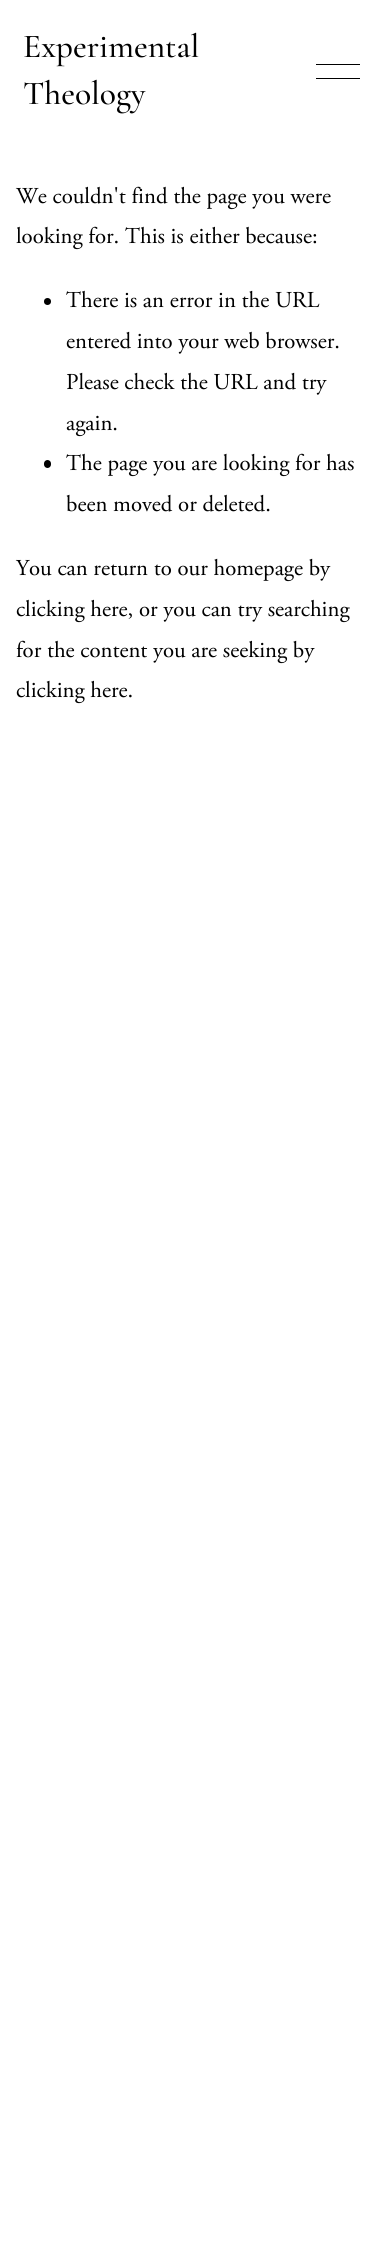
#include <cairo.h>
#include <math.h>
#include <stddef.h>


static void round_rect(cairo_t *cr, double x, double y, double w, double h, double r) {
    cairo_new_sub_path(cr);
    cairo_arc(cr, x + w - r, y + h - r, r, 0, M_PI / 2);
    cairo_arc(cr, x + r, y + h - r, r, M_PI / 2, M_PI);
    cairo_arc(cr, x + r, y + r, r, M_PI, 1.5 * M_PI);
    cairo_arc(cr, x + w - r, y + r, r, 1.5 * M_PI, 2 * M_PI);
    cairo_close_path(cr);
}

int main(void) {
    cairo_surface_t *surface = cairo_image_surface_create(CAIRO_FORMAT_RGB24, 391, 2249);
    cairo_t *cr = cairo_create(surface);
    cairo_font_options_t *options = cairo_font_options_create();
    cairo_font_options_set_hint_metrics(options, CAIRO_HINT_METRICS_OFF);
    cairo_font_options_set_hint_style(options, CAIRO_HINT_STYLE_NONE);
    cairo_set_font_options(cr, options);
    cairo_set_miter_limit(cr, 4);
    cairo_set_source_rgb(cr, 1, 1, 1);
    cairo_paint(cr);
    cairo_select_font_face(cr, "Cormorant Garamond Medium", CAIRO_FONT_SLANT_NORMAL, CAIRO_FONT_WEIGHT_NORMAL);
    cairo_set_font_size(cr, 33.5);
    cairo_set_source_rgb(cr, 0, 0, 0);
    cairo_move_to(cr, 23, 57);
    cairo_show_text(cr, "Experimental");
    cairo_move_to(cr, 23, 104);
    cairo_show_text(cr, "Theology");
    cairo_rectangle(cr, 316, 64, 44, 1);
    cairo_fill(cr);
    cairo_rectangle(cr, 316, 78, 44, 1);
    cairo_fill(cr);
    cairo_select_font_face(cr, "Adobe Garamond", CAIRO_FONT_SLANT_NORMAL, CAIRO_FONT_WEIGHT_NORMAL);
    cairo_set_font_size(cr, 22.75);
    cairo_move_to(cr, 16, 203);
    cairo_show_text(cr, "We couldn't find the page you were");
    cairo_move_to(cr, 16, 243);
    cairo_show_text(cr, "looking for. This is either because:");
    cairo_new_path(cr);
    cairo_arc(cr, 47.5, 301.5, 3.5, 0, 2 * M_PI);
    cairo_fill(cr);
    cairo_move_to(cr, 66, 307);
    cairo_show_text(cr, "There is an error in the URL");
    cairo_move_to(cr, 66, 348);
    cairo_show_text(cr, "entered into your web browser.");
    cairo_move_to(cr, 66, 389);
    cairo_show_text(cr, "Please check the URL and try");
    cairo_move_to(cr, 66, 430);
    cairo_show_text(cr, "again.");
    round_rect(cr, 44, 460, 7, 8, 3.5);
    cairo_fill(cr);
    cairo_move_to(cr, 66, 470);
    cairo_show_text(cr, "The page you are looking for has");
    cairo_move_to(cr, 66, 511);
    cairo_show_text(cr, "been moved or deleted.");
    cairo_move_to(cr, 16, 575);
    cairo_show_text(cr, "You can return to our homepage by");
    cairo_move_to(cr, 16, 616);
    cairo_show_text(cr, "clicking here, or you can try searching");
    cairo_move_to(cr, 16, 657);
    cairo_show_text(cr, "for the content you are seeking by");
    cairo_move_to(cr, 16, 697);
    cairo_show_text(cr, "clicking here.");
    cairo_surface_write_to_png(surface, "page.png");
    cairo_font_options_destroy(options);
    cairo_destroy(cr);
    cairo_surface_destroy(surface);
    return 0;
}
